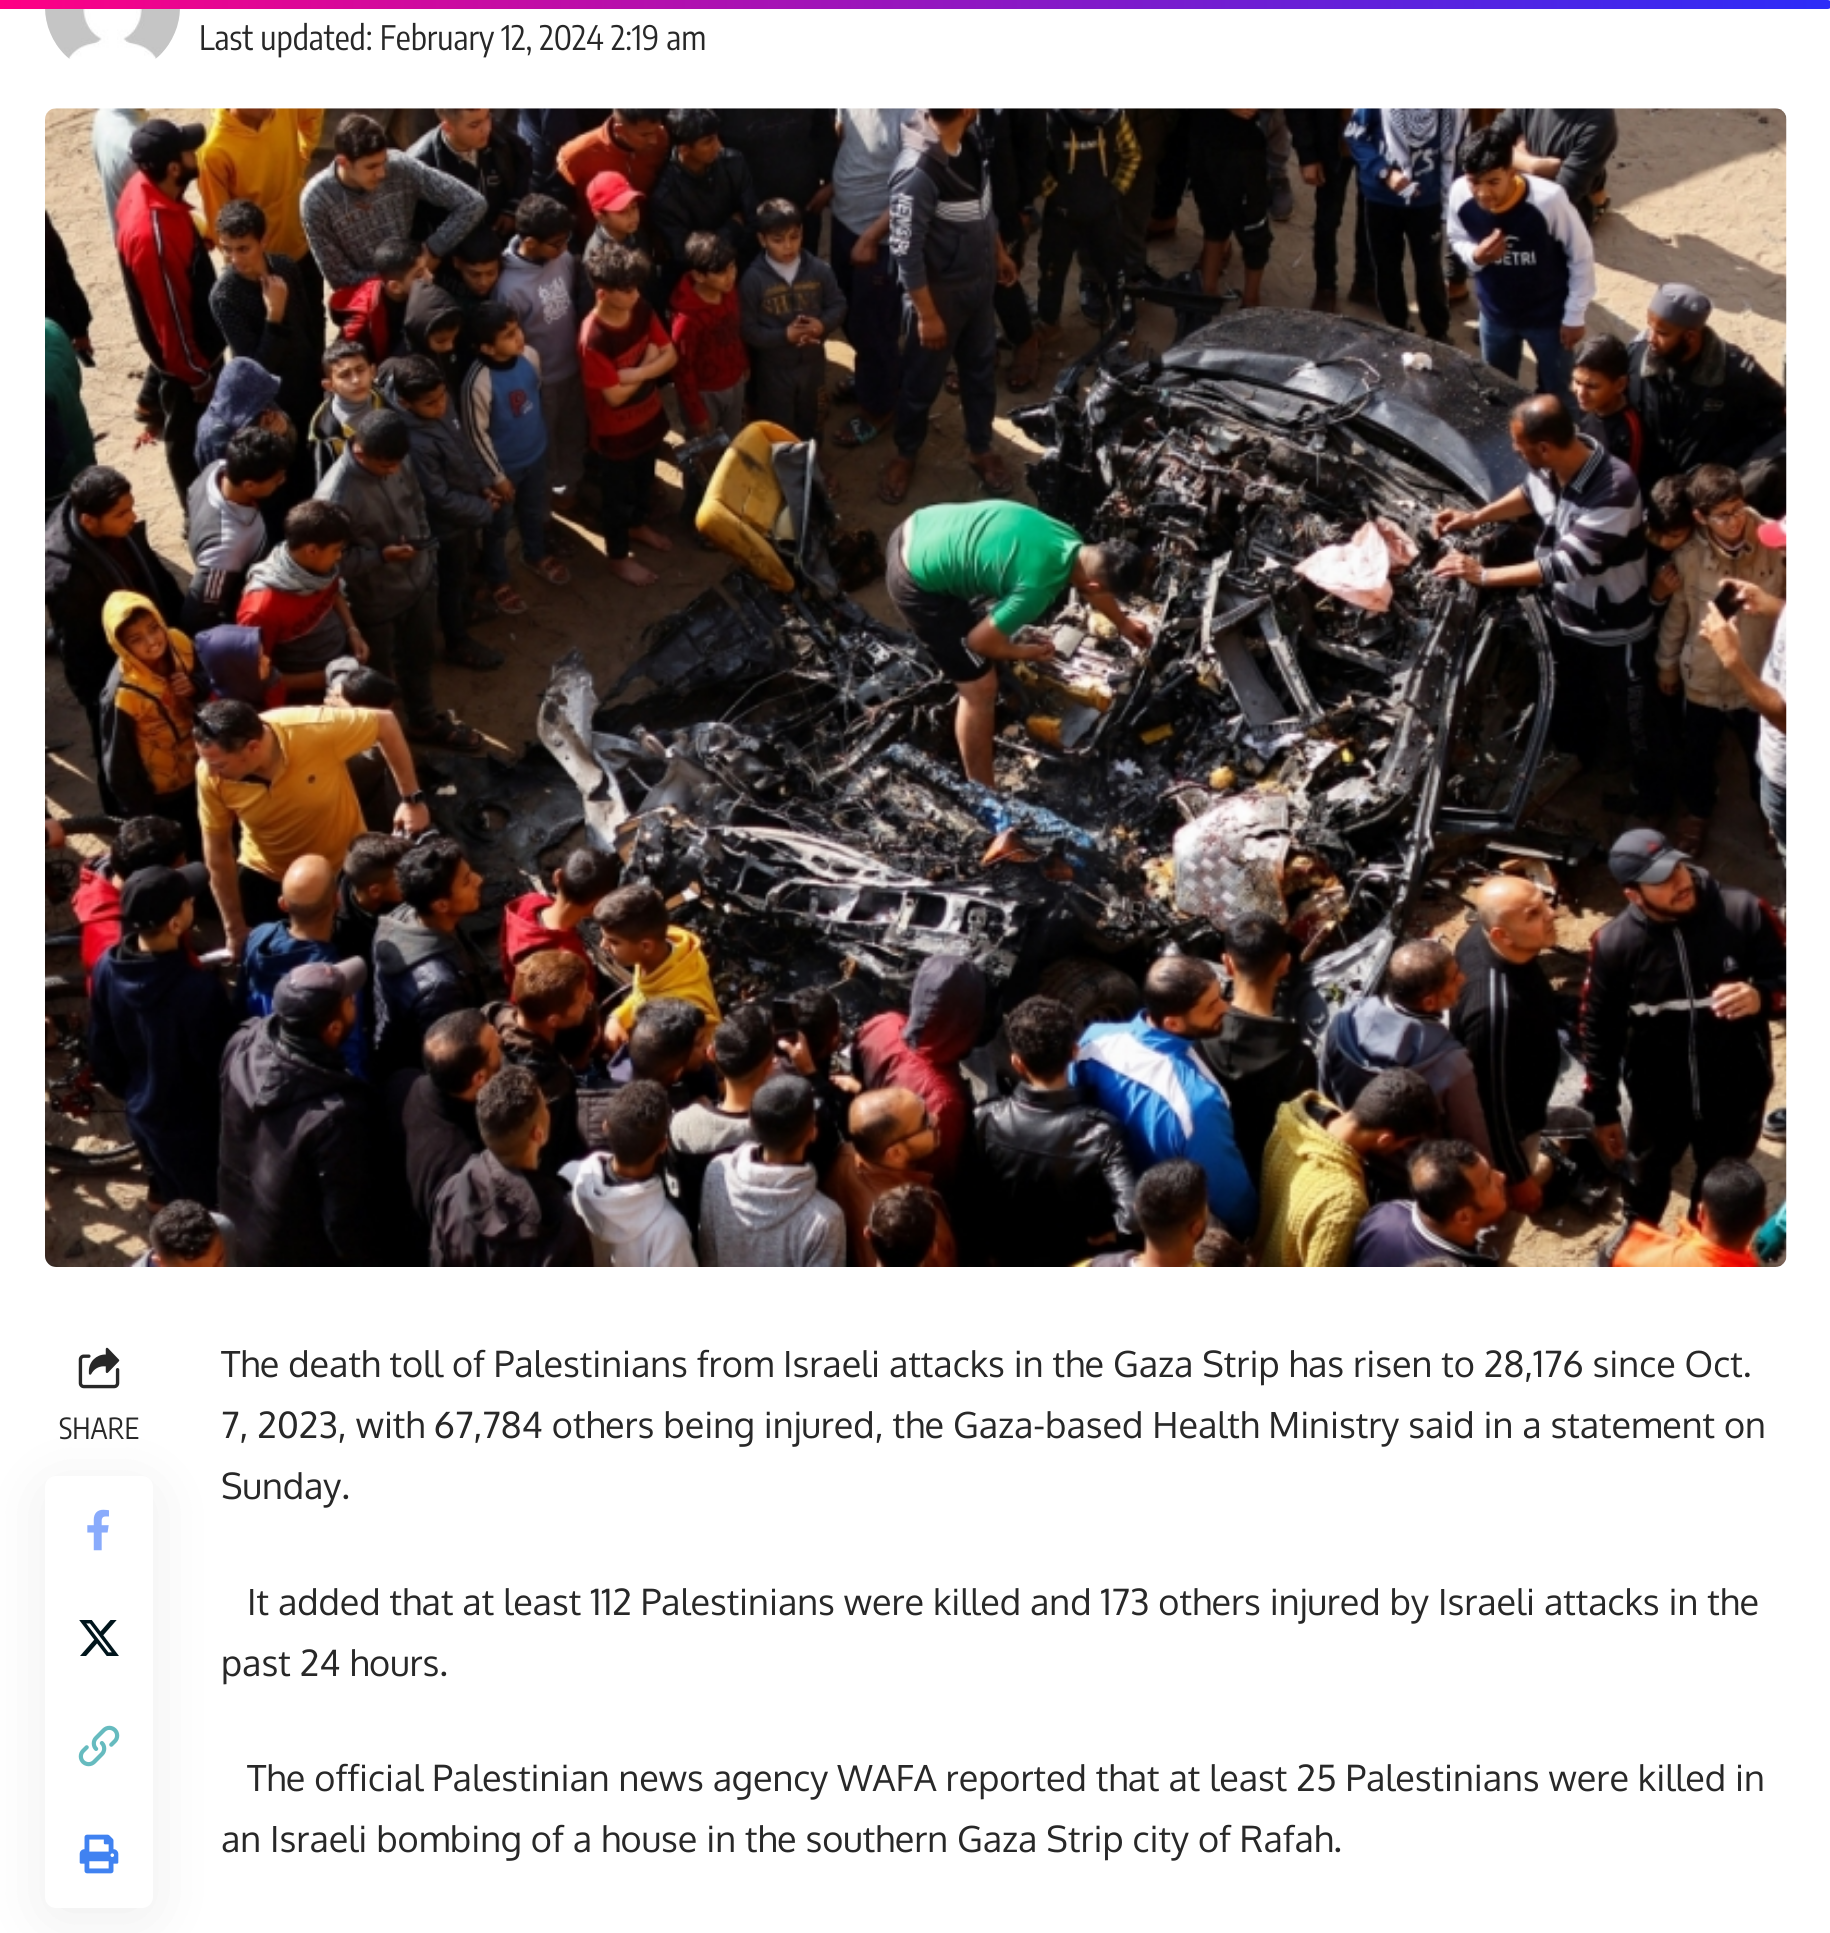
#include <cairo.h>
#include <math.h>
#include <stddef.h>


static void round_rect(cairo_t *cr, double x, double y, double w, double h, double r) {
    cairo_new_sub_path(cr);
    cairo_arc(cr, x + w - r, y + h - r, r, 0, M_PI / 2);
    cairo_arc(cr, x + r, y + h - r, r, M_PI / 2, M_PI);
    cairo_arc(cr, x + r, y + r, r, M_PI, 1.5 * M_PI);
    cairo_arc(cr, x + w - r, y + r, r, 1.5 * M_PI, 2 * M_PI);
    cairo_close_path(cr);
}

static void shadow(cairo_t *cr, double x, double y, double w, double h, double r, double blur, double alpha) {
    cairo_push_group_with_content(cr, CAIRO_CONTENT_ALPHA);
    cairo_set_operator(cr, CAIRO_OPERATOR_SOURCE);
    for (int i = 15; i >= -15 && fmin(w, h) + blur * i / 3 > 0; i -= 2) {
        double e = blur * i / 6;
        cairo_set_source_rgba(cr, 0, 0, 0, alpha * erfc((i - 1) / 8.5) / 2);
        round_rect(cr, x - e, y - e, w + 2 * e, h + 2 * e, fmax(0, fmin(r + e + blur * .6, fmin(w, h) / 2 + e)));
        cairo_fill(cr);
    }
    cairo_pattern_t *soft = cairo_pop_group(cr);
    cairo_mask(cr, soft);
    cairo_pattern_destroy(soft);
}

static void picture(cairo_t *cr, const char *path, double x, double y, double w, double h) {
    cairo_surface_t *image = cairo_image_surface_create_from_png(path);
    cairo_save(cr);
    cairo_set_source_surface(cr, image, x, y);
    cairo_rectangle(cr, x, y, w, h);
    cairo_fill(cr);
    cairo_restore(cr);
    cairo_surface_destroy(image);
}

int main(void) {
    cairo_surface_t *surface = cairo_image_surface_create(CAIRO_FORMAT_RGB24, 1830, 1933);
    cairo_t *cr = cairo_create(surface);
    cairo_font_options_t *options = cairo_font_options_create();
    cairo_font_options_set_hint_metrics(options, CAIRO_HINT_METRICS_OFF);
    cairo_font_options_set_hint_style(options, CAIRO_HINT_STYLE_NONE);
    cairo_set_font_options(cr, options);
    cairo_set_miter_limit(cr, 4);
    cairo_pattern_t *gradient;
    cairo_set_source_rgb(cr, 1, 1, 1);
    cairo_paint(cr);
    gradient = cairo_pattern_create_linear(0, 4.5, 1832, 4.5);
    cairo_pattern_add_color_stop_rgba(gradient, 0, 1, 0, 0.518, 1);
    cairo_pattern_add_color_stop_rgba(gradient, 1, 0.173, 0.173, 0.973, 1);
    cairo_set_source(cr, gradient);
    cairo_pattern_destroy(gradient);
    cairo_new_path(cr);
    cairo_move_to(cr, 0, 0);
    cairo_line_to(cr, 1827.5, 0);
    cairo_curve_to(cr, 1830, 0, 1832, 2, 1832, 4.5);
    cairo_curve_to(cr, 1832, 7, 1830, 9, 1827.5, 9);
    cairo_line_to(cr, 0, 9);
    cairo_close_path(cr);
    cairo_fill(cr);
    picture(cr, "img1.png", 45, 9, 135, 50);
    cairo_select_font_face(cr, "Encode Sans Condensed", CAIRO_FONT_SLANT_NORMAL, CAIRO_FONT_WEIGHT_NORMAL);
    cairo_set_font_size(cr, 33.6);
    cairo_set_source_rgb(cr, 0.157, 0.157, 0.157);
    cairo_move_to(cr, 199, 50);
    cairo_show_text(cr, "Last updated: February 12, 2024 2:19 am");
    picture(cr, "img2.png", 45, 108, 1742, 1159);
    picture(cr, "img7.png", 78, 1347, 42, 42);
    cairo_set_source_rgb(cr, 0, 0, 0);
    shadow(cr, 45, 1487, 108, 432, 11, 34, 0.07);
    cairo_set_source_rgb(cr, 1, 1, 1);
    round_rect(cr, 45, 1476, 108, 432, 11);
    cairo_fill(cr);
    picture(cr, "img3.png", 87, 1509, 22, 42);
    picture(cr, "img4.png", 79, 1620, 40, 36);
    picture(cr, "img5.png", 78, 1725, 42, 42);
    picture(cr, "img6.png", 79, 1834, 40, 40);
    cairo_set_font_size(cr, 29);
    cairo_set_source_rgb(cr, 0.157, 0.157, 0.157);
    cairo_move_to(cr, 59, 1439);
    cairo_show_text(cr, "SHARE");
    cairo_select_font_face(cr, "Oxygen", CAIRO_FONT_SLANT_NORMAL, CAIRO_FONT_WEIGHT_NORMAL);
    cairo_set_font_size(cr, 36);
    cairo_move_to(cr, 221, 1377);
    cairo_show_text(cr, "The death toll of Palestinians from Israeli attacks in the Gaza Strip has risen to 28,176 since Oct.");
    cairo_move_to(cr, 221, 1438);
    cairo_show_text(cr, "7, 2023, with 67,784 others being injured, the Gaza-based Health Ministry said in a statement on");
    cairo_move_to(cr, 221, 1499);
    cairo_show_text(cr, "Sunday.");
    cairo_move_to(cr, 247, 1615);
    cairo_show_text(cr, "It added that at least 112 Palestinians were killed and 173 others injured by Israeli attacks in the");
    cairo_move_to(cr, 221, 1676);
    cairo_show_text(cr, "past 24 hours.");
    cairo_move_to(cr, 247, 1791);
    cairo_show_text(cr, "The official Palestinian news agency WAFA reported that at least 25 Palestinians were killed in");
    cairo_move_to(cr, 221, 1852);
    cairo_show_text(cr, "an Israeli bombing of a house in the southern Gaza Strip city of Rafah.");
    cairo_surface_write_to_png(surface, "page.png");
    cairo_font_options_destroy(options);
    cairo_destroy(cr);
    cairo_surface_destroy(surface);
    return 0;
}
